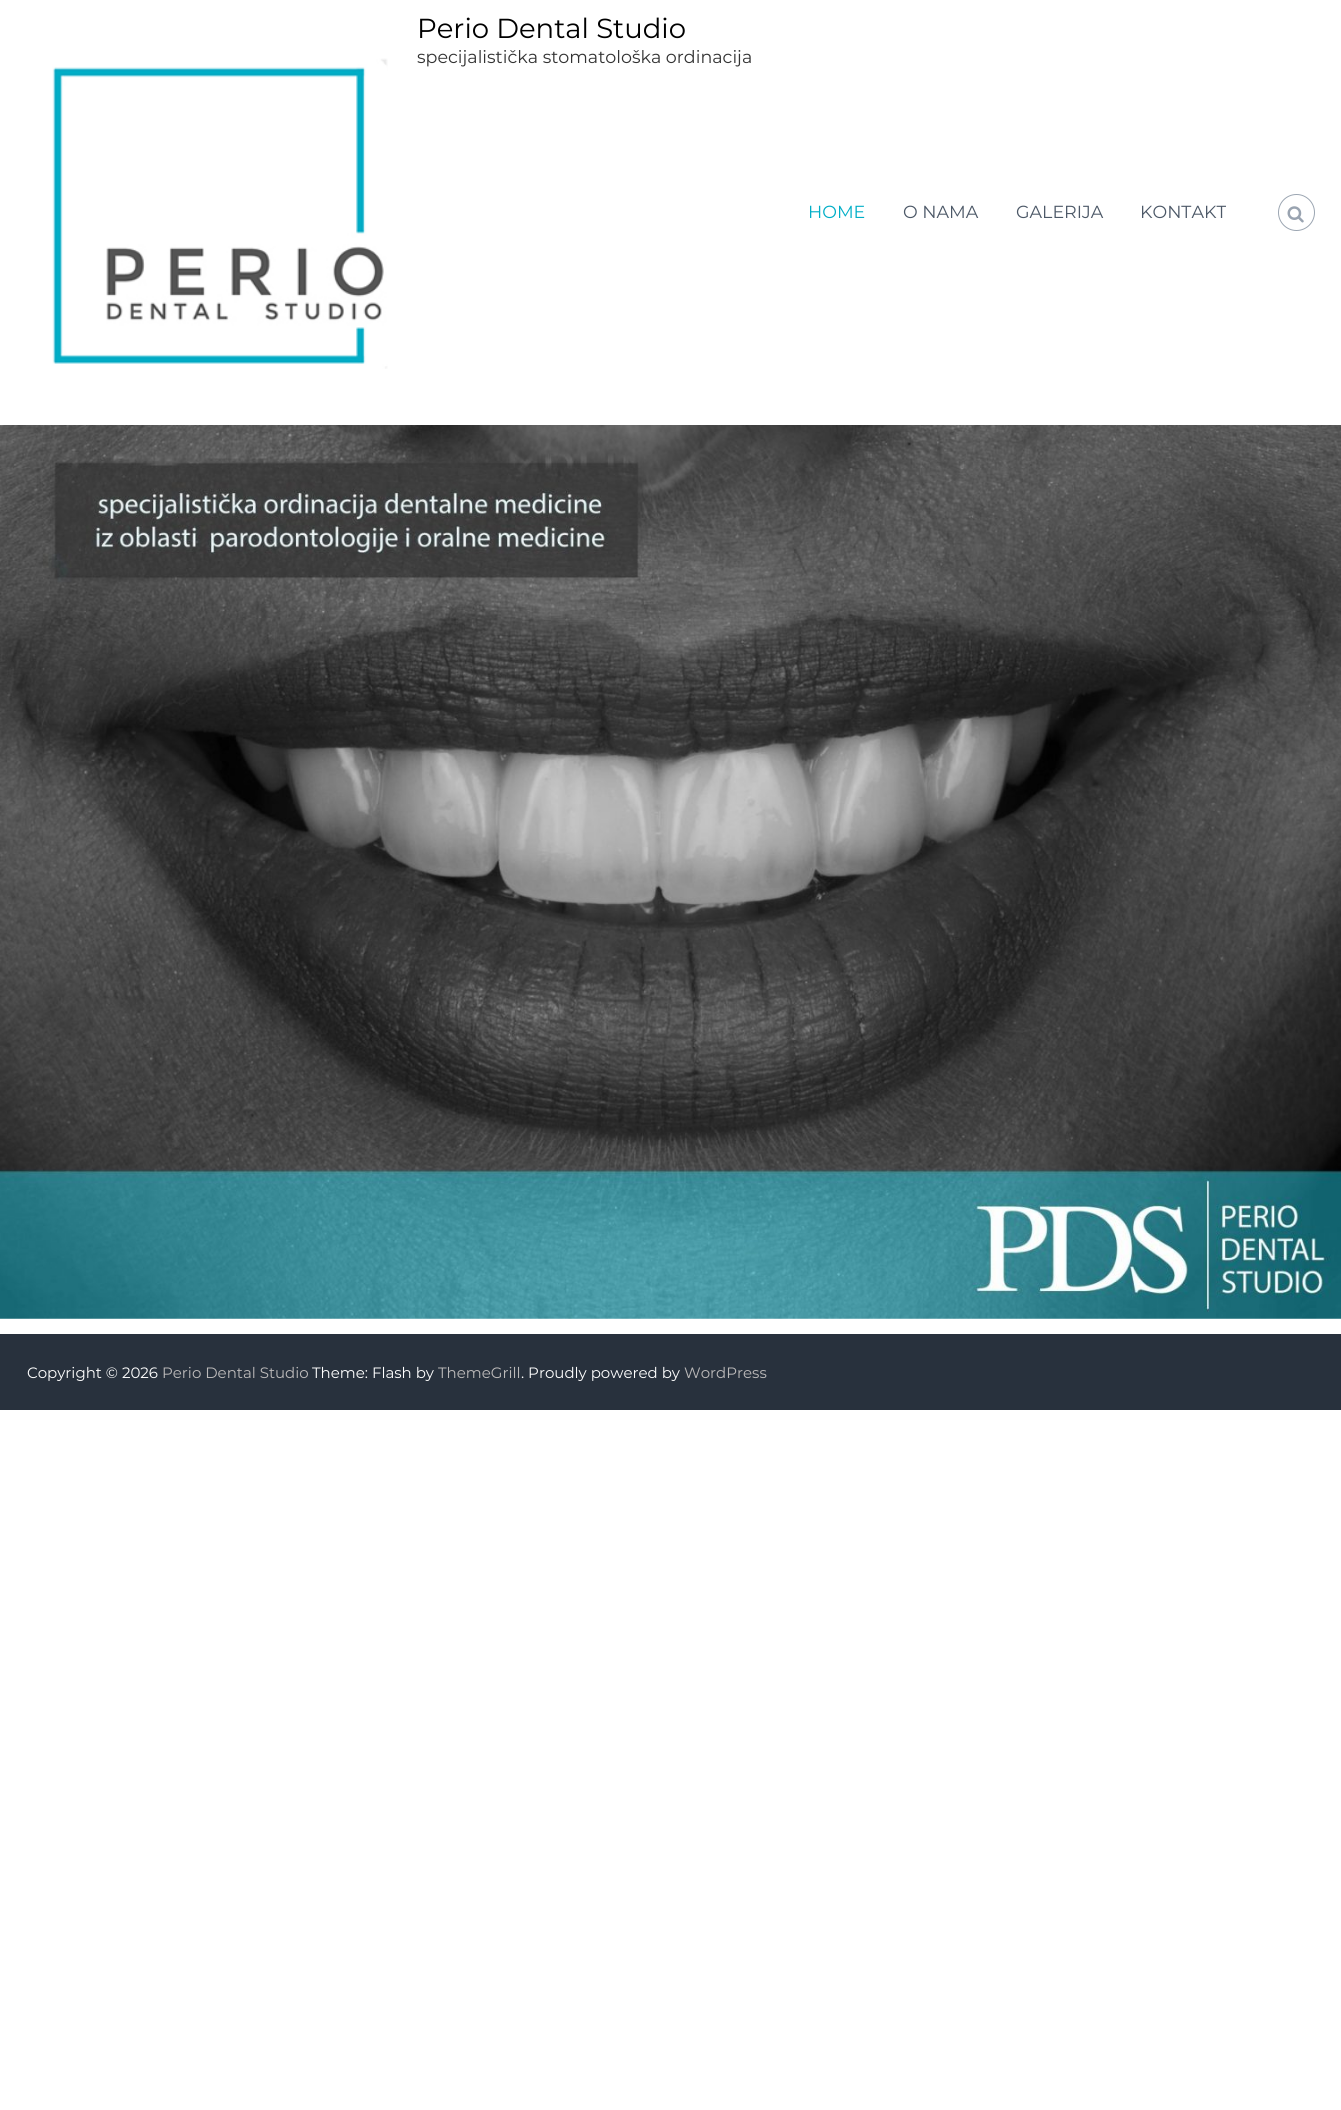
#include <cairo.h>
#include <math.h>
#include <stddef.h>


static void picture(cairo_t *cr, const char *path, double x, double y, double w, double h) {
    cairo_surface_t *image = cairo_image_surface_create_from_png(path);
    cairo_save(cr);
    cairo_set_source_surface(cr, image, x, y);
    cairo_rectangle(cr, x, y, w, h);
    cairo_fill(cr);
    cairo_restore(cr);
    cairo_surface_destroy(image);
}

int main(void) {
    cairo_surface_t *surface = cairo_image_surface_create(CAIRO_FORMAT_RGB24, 1341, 2110);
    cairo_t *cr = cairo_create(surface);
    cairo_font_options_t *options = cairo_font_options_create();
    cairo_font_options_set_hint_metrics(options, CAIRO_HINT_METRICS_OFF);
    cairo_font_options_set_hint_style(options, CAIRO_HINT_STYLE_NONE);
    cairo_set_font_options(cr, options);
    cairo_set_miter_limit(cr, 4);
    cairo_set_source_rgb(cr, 1, 1, 1);
    cairo_paint(cr);
    cairo_select_font_face(cr, "Montserrat Thin", CAIRO_FONT_SLANT_NORMAL, CAIRO_FONT_WEIGHT_NORMAL);
    cairo_set_font_size(cr, 27.5);
    cairo_set_source_rgb(cr, 0, 0, 0);
    cairo_move_to(cr, 417, 38);
    cairo_show_text(cr, "Perio Dental Studio");
    cairo_set_font_size(cr, 17.5);
    cairo_set_source_rgb(cr, 0.2, 0.2, 0.2);
    cairo_move_to(cr, 417, 63);
    cairo_show_text(cr, "specijalistička stomatološka ordinacija");
    picture(cr, "img1.png", 52, 58, 336, 311);
    cairo_set_source_rgb(cr, 0, 0.682, 0.78);
    cairo_move_to(cr, 808, 218);
    cairo_show_text(cr, "HOME");
    cairo_set_source_rgb(cr, 0.298, 0.345, 0.404);
    cairo_move_to(cr, 903, 218);
    cairo_show_text(cr, "O NAMA");
    cairo_move_to(cr, 1016, 218);
    cairo_show_text(cr, "GALERIJA");
    cairo_move_to(cr, 1140, 218);
    cairo_show_text(cr, "KONTAKT");
    cairo_new_path(cr);
    cairo_arc(cr, 1296.5, 212.5, 18, 0, 2 * M_PI);
    cairo_set_source_rgb(cr, 0.612, 0.651, 0.698);
    cairo_set_line_width(cr, 1);
    cairo_stroke(cr);
    picture(cr, "img2.png", 1287, 206, 17, 17);
    picture(cr, "img3.png", 0, 425, 1341, 894);
    cairo_set_source_rgb(cr, 0.157, 0.192, 0.239);
    cairo_rectangle(cr, 0, 1334, 1341, 76);
    cairo_fill(cr);
    cairo_set_font_size(cr, 15);
    cairo_set_source_rgb(cr, 1, 1, 1);
    cairo_move_to(cr, 27, 1378);
    cairo_show_text(cr, "Copyright © 2026");
    cairo_set_source_rgb(cr, 0.737, 0.729, 0.729);
    cairo_move_to(cr, 162, 1378);
    cairo_show_text(cr, "Perio Dental Studio");
    cairo_set_source_rgb(cr, 1, 1, 1);
    cairo_move_to(cr, 312, 1378);
    cairo_show_text(cr, "Theme: Flash by");
    cairo_set_source_rgb(cr, 0.737, 0.729, 0.729);
    cairo_move_to(cr, 438, 1378);
    cairo_show_text(cr, "ThemeGrill");
    cairo_set_source_rgb(cr, 1, 1, 1);
    cairo_move_to(cr, 521, 1378);
    cairo_show_text(cr, ". Proudly powered by");
    cairo_set_source_rgb(cr, 0.737, 0.729, 0.729);
    cairo_move_to(cr, 684, 1378);
    cairo_show_text(cr, "WordPress");
    cairo_surface_write_to_png(surface, "page.png");
    cairo_font_options_destroy(options);
    cairo_destroy(cr);
    cairo_surface_destroy(surface);
    return 0;
}
